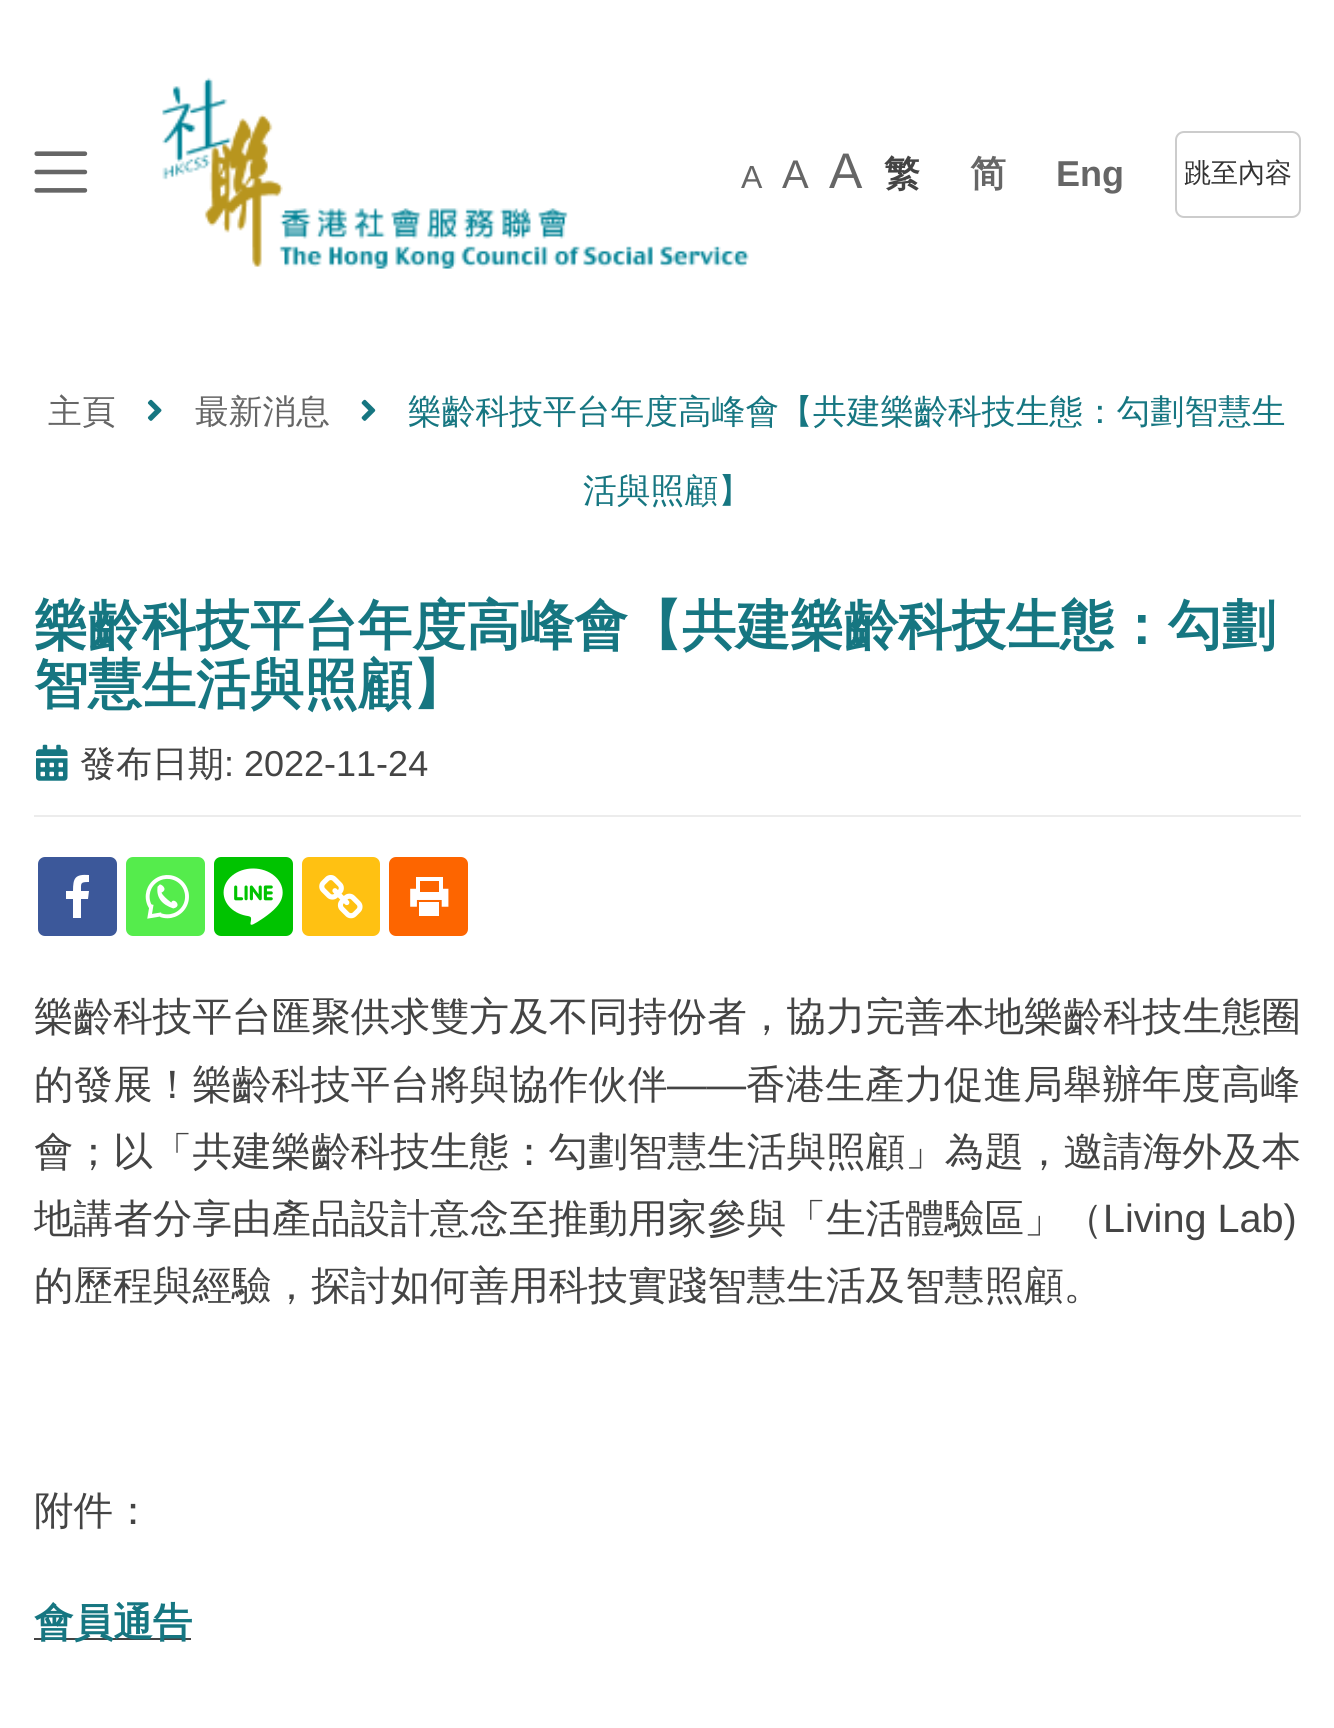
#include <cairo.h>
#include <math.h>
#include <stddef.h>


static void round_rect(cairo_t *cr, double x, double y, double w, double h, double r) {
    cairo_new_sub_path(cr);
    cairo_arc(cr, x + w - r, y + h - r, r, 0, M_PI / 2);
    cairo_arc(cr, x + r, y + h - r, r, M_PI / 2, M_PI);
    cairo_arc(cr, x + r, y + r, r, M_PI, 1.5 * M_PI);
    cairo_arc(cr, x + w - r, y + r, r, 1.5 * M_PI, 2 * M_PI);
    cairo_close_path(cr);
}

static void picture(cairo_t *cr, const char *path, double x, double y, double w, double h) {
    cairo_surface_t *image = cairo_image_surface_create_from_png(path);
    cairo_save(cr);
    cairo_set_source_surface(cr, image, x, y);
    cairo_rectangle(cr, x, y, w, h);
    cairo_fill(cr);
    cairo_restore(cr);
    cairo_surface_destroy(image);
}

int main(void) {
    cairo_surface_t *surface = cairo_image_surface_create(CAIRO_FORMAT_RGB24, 1334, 1728);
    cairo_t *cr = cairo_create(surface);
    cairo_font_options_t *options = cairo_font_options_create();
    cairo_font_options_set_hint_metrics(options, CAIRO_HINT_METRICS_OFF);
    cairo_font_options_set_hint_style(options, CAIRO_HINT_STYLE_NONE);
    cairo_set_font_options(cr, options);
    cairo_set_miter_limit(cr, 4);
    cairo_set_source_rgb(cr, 1, 1, 1);
    cairo_paint(cr);
    picture(cr, "img1.png", 34, 151, 54, 42);
    picture(cr, "img2.png", 162, 77, 587, 192);
    cairo_select_font_face(cr, "Liberation Sans", CAIRO_FONT_SLANT_NORMAL, CAIRO_FONT_WEIGHT_NORMAL);
    cairo_set_font_size(cr, 32);
    cairo_set_source_rgb(cr, 0.4, 0.4, 0.4);
    cairo_move_to(cr, 741, 188);
    cairo_show_text(cr, "A");
    cairo_set_font_size(cr, 40);
    cairo_move_to(cr, 782, 188);
    cairo_show_text(cr, "A");
    cairo_set_font_size(cr, 50);
    cairo_move_to(cr, 829, 188);
    cairo_show_text(cr, "A");
    cairo_select_font_face(cr, "WenQuanYi Zen Hei", CAIRO_FONT_SLANT_NORMAL, CAIRO_FONT_WEIGHT_BOLD);
    cairo_set_font_size(cr, 36);
    cairo_set_source_rgb(cr, 0.267, 0.267, 0.267);
    cairo_move_to(cr, 884, 186);
    cairo_show_text(cr, "繁");
    cairo_set_source_rgb(cr, 0.4, 0.4, 0.4);
    cairo_move_to(cr, 970, 186);
    cairo_show_text(cr, "简");
    cairo_select_font_face(cr, "Liberation Sans", CAIRO_FONT_SLANT_NORMAL, CAIRO_FONT_WEIGHT_BOLD);
    cairo_move_to(cr, 1056, 186);
    cairo_show_text(cr, "Eng");
    round_rect(cr, 1176, 132, 124, 85, 8);
    cairo_set_source_rgb(cr, 0.8, 0.8, 0.8);
    cairo_stroke(cr);
    cairo_select_font_face(cr, "WenQuanYi Zen Hei Medium", CAIRO_FONT_SLANT_NORMAL, CAIRO_FONT_WEIGHT_NORMAL);
    cairo_set_font_size(cr, 27);
    cairo_set_source_rgb(cr, 0.2, 0.2, 0.2);
    cairo_move_to(cr, 1184, 182);
    cairo_show_text(cr, "跳至內容");
    cairo_set_font_size(cr, 33.75);
    cairo_set_source_rgb(cr, 0.4, 0.4, 0.4);
    cairo_move_to(cr, 48, 423);
    cairo_show_text(cr, "主頁");
    picture(cr, "img3.png", 147, 399, 15, 22);
    cairo_move_to(cr, 195, 423);
    cairo_show_text(cr, "最新消息");
    picture(cr, "img4.png", 361, 399, 15, 22);
    cairo_set_source_rgb(cr, 0.086, 0.463, 0.506);
    cairo_move_to(cr, 408, 423);
    cairo_show_text(cr, "樂齡科技平台年度高峰會【共建樂齡科技生態：勾劃智慧生");
    cairo_move_to(cr, 583, 502);
    cairo_show_text(cr, "活與照顧】");
    cairo_select_font_face(cr, "WenQuanYi Zen Hei", CAIRO_FONT_SLANT_NORMAL, CAIRO_FONT_WEIGHT_BOLD);
    cairo_set_font_size(cr, 54);
    cairo_move_to(cr, 34, 644);
    cairo_show_text(cr, "樂齡科技平台年度高峰會【共建樂齡科技生態：勾劃");
    cairo_move_to(cr, 34, 703);
    cairo_show_text(cr, "智慧生活與照顧】");
    picture(cr, "img5.png", 36, 744, 32, 37);
    cairo_select_font_face(cr, "WenQuanYi Zen Hei Medium", CAIRO_FONT_SLANT_NORMAL, CAIRO_FONT_WEIGHT_NORMAL);
    cairo_set_font_size(cr, 36);
    cairo_set_source_rgb(cr, 0.267, 0.267, 0.267);
    cairo_move_to(cr, 80, 776);
    cairo_show_text(cr, "發布日期");
    cairo_select_font_face(cr, "Liberation Sans", CAIRO_FONT_SLANT_NORMAL, CAIRO_FONT_WEIGHT_NORMAL);
    cairo_move_to(cr, 224, 776);
    cairo_show_text(cr, ": 2022-11-24");
    cairo_set_source_rgb(cr, 0.922, 0.922, 0.922);
    cairo_rectangle(cr, 34, 815, 1267, 2);
    cairo_fill(cr);
    cairo_set_source_rgb(cr, 0.235, 0.345, 0.604);
    round_rect(cr, 38, 857, 79, 79, 7);
    cairo_fill(cr);
    cairo_set_source_rgb(cr, 1, 1, 1);
    cairo_new_path(cr);
    cairo_move_to(cr, 81, 918);
    cairo_line_to(cr, 81, 899);
    cairo_line_to(cr, 88, 899);
    cairo_line_to(cr, 89, 891);
    cairo_line_to(cr, 81, 891);
    cairo_curve_to(cr, 81, 883, 80, 882, 89, 882);
    cairo_line_to(cr, 89, 875);
    cairo_curve_to(cr, 75, 874, 73, 878, 73, 891);
    cairo_line_to(cr, 66, 891);
    cairo_line_to(cr, 66, 899);
    cairo_line_to(cr, 73, 899);
    cairo_line_to(cr, 73, 918);
    cairo_close_path(cr);
    cairo_fill(cr);
    cairo_set_source_rgb(cr, 0.333, 0.922, 0.298);
    round_rect(cr, 126, 857, 79, 79, 7);
    cairo_fill(cr);
    picture(cr, "img6.png", 145, 875, 44, 44);
    cairo_set_source_rgb(cr, 0, 0.765, 0);
    round_rect(cr, 214, 857, 79, 79, 7);
    cairo_fill(cr);
    picture(cr, "img7.png", 223, 868, 60, 57);
    cairo_set_source_rgb(cr, 1, 0.757, 0.071);
    round_rect(cr, 302, 857, 78, 79, 7);
    cairo_fill(cr);
    picture(cr, "img8.png", 319, 875, 44, 44);
    cairo_set_source_rgb(cr, 0.992, 0.396, 0);
    round_rect(cr, 389, 857, 79, 79, 7);
    cairo_fill(cr);
    picture(cr, "img9.png", 410, 877, 39, 39);
    cairo_select_font_face(cr, "WenQuanYi Zen Hei Medium", CAIRO_FONT_SLANT_NORMAL, CAIRO_FONT_WEIGHT_NORMAL);
    cairo_set_font_size(cr, 39.6);
    cairo_set_source_rgb(cr, 0.267, 0.267, 0.267);
    cairo_move_to(cr, 34, 1030);
    cairo_show_text(cr, "樂齡科技平台匯聚供求雙方及不同持份者，協力完善本地樂齡科技生態圈");
    cairo_move_to(cr, 34, 1098);
    cairo_show_text(cr, "的發展！樂齡科技平台將與協作伙伴");
    cairo_select_font_face(cr, "Liberation Sans", CAIRO_FONT_SLANT_NORMAL, CAIRO_FONT_WEIGHT_NORMAL);
    cairo_move_to(cr, 667, 1098);
    cairo_show_text(cr, "——");
    cairo_select_font_face(cr, "WenQuanYi Zen Hei Medium", CAIRO_FONT_SLANT_NORMAL, CAIRO_FONT_WEIGHT_NORMAL);
    cairo_move_to(cr, 746, 1098);
    cairo_show_text(cr, "香港生產力促進局舉辦年度高峰");
    cairo_move_to(cr, 34, 1165);
    cairo_show_text(cr, "會；以「共建樂齡科技生態：勾劃智慧生活與照顧」為題，邀請海外及本");
    cairo_move_to(cr, 34, 1232);
    cairo_show_text(cr, "地講者分享由產品設計意念至推動用家參與「生活體驗區」（");
    cairo_select_font_face(cr, "Liberation Sans", CAIRO_FONT_SLANT_NORMAL, CAIRO_FONT_WEIGHT_NORMAL);
    cairo_move_to(cr, 1103, 1232);
    cairo_show_text(cr, "Living Lab)");
    cairo_select_font_face(cr, "WenQuanYi Zen Hei Medium", CAIRO_FONT_SLANT_NORMAL, CAIRO_FONT_WEIGHT_NORMAL);
    cairo_move_to(cr, 34, 1299);
    cairo_show_text(cr, "的歷程與經驗，探討如何善用科技實踐智慧生活及智慧照顧。");
    cairo_move_to(cr, 34, 1524);
    cairo_show_text(cr, "附件：");
    cairo_rectangle(cr, 34, 1638, 157, 2);
    cairo_fill(cr);
    cairo_select_font_face(cr, "WenQuanYi Zen Hei", CAIRO_FONT_SLANT_NORMAL, CAIRO_FONT_WEIGHT_BOLD);
    cairo_set_source_rgb(cr, 0.086, 0.463, 0.506);
    cairo_move_to(cr, 34, 1636);
    cairo_show_text(cr, "會員通告");
    cairo_surface_write_to_png(surface, "page.png");
    cairo_font_options_destroy(options);
    cairo_destroy(cr);
    cairo_surface_destroy(surface);
    return 0;
}
